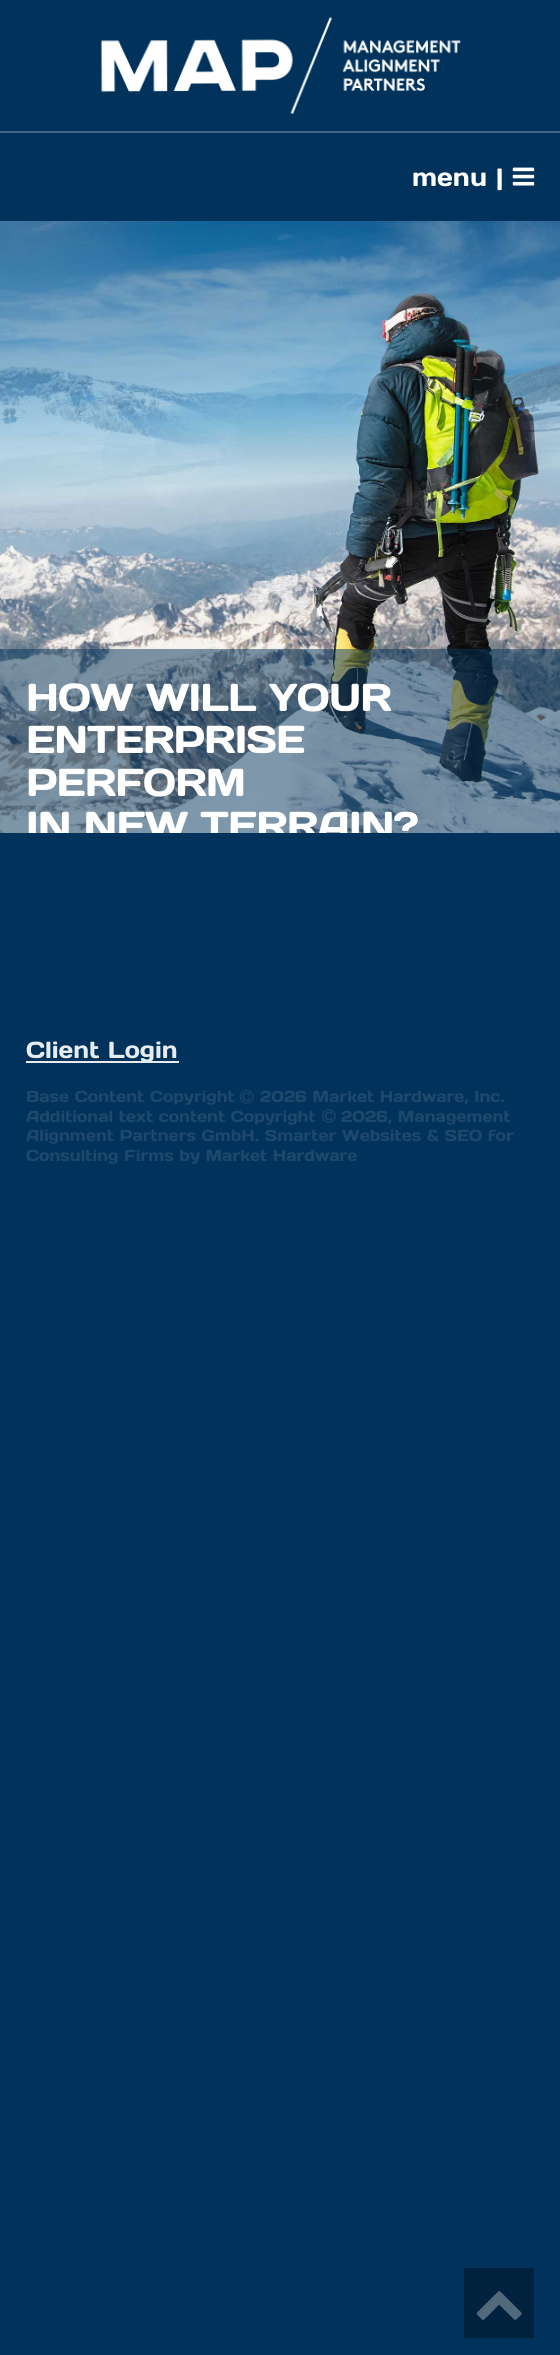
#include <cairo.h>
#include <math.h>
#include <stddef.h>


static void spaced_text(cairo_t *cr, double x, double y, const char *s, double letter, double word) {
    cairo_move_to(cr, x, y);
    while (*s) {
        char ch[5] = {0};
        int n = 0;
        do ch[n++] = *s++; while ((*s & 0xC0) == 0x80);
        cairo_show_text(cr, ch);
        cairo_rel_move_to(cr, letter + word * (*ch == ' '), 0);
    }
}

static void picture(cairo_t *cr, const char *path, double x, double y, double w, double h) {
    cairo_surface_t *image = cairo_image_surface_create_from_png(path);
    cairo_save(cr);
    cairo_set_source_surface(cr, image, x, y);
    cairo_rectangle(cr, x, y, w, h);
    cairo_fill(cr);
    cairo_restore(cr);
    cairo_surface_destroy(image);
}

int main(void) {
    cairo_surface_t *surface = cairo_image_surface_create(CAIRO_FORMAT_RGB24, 560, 2355);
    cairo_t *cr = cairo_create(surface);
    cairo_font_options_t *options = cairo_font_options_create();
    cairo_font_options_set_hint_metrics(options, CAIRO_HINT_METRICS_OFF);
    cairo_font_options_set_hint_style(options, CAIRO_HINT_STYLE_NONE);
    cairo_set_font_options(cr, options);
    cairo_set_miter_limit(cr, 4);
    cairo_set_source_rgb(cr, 0, 0.196, 0.357);
    cairo_paint(cr);
    cairo_set_source_rgb(cr, 0.251, 0.396, 0.518);
    cairo_rectangle(cr, 0, 131, 560, 2);
    cairo_fill(cr);
    picture(cr, "img1.png", 101, 17, 360, 97);
    cairo_select_font_face(cr, "Days One", CAIRO_FONT_SLANT_NORMAL, CAIRO_FONT_WEIGHT_NORMAL);
    cairo_set_font_size(cr, 25);
    cairo_set_source_rgb(cr, 1, 1, 1);
    cairo_move_to(cr, 412, 186);
    cairo_show_text(cr, "menu |");
    picture(cr, "img2.png", 512, 167, 23, 19);
    picture(cr, "img5.png", 0, 221, 560, 612);
    cairo_set_source_rgba(cr, 0, 0.196, 0.357, 0.5);
    cairo_rectangle(cr, 0, 649, 560, 184);
    cairo_fill(cr);
    cairo_set_font_size(cr, 38.9);
    cairo_set_source_rgb(cr, 1, 1, 1);
    spaced_text(cr, 26, 711, "HOW WILL YOUR", -0.8, 0);
    spaced_text(cr, 26, 753, "ENTERPRISE", -0.8, 0);
    spaced_text(cr, 26, 796, "PERFORM", -0.8, 0);
    spaced_text(cr, 26, 839, "IN NEW TERRAIN?", -0.8, 0);
    cairo_set_source_rgb(cr, 0, 0.196, 0.357);
    cairo_rectangle(cr, 28, 833, 382, 7);
    cairo_fill(cr);
    cairo_set_source_rgb(cr, 0.902, 0.922, 0.937);
    cairo_rectangle(cr, 26, 1061, 153, 2);
    cairo_fill(cr);
    cairo_set_font_size(cr, 23.25);
    cairo_move_to(cr, 26, 1058);
    cairo_show_text(cr, "Client Login");
    cairo_set_font_size(cr, 15.95);
    cairo_set_source_rgb(cr, 0.114, 0.282, 0.42);
    cairo_move_to(cr, 26, 1102);
    cairo_show_text(cr, "Base Content Copyright");
    picture(cr, "img3.png", 239, 1090, 15, 14);
    cairo_move_to(cr, 260, 1102);
    cairo_show_text(cr, "2026 Market Hardware, Inc.");
    cairo_move_to(cr, 26, 1122);
    cairo_show_text(cr, "Additional text content Copyright");
    picture(cr, "img4.png", 322, 1109, 14, 14);
    cairo_move_to(cr, 341, 1122);
    cairo_show_text(cr, "2026, Management");
    cairo_move_to(cr, 26, 1141);
    cairo_show_text(cr, "Alignment Partners GmbH. Smarter Websites & SEO for");
    cairo_move_to(cr, 26, 1161);
    cairo_show_text(cr, "Consulting Firms by Market Hardware");
    cairo_set_source_rgb(cr, 0, 0.133, 0.243);
    cairo_rectangle(cr, 464, 2268, 70, 70);
    cairo_fill(cr);
    picture(cr, "img6.png", 476, 2291, 46, 29);
    cairo_surface_write_to_png(surface, "page.png");
    cairo_font_options_destroy(options);
    cairo_destroy(cr);
    cairo_surface_destroy(surface);
    return 0;
}
